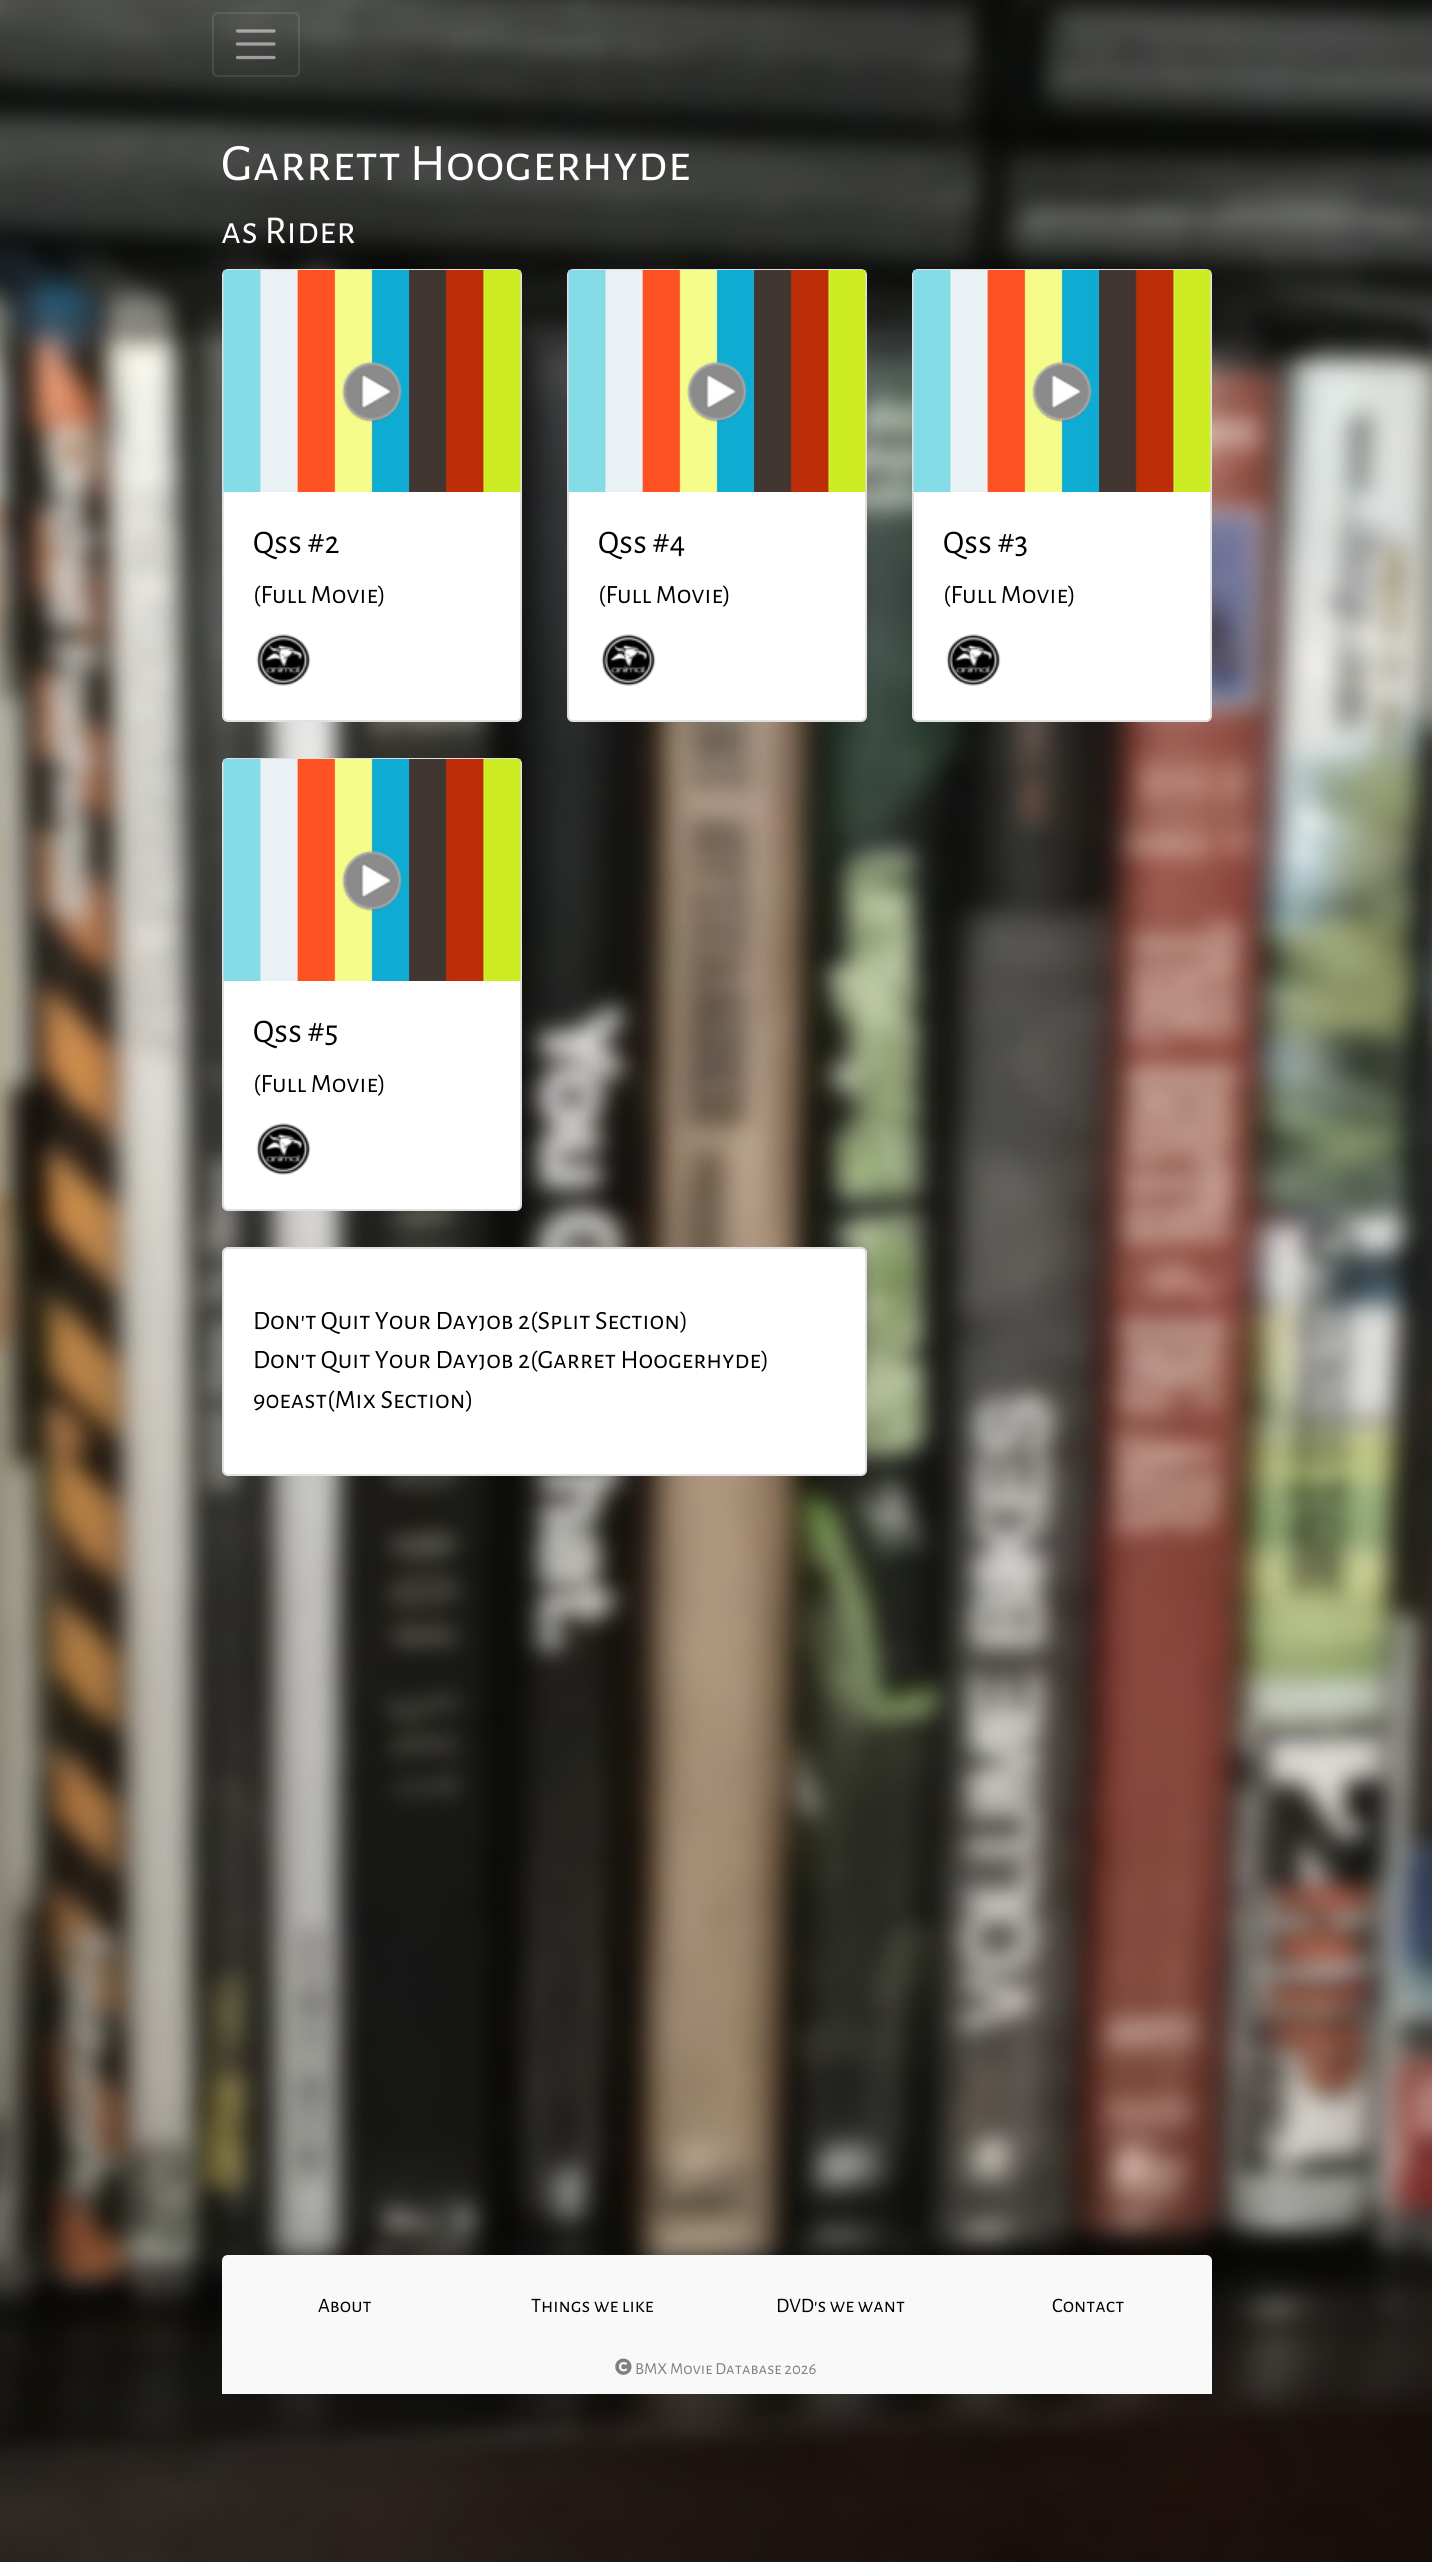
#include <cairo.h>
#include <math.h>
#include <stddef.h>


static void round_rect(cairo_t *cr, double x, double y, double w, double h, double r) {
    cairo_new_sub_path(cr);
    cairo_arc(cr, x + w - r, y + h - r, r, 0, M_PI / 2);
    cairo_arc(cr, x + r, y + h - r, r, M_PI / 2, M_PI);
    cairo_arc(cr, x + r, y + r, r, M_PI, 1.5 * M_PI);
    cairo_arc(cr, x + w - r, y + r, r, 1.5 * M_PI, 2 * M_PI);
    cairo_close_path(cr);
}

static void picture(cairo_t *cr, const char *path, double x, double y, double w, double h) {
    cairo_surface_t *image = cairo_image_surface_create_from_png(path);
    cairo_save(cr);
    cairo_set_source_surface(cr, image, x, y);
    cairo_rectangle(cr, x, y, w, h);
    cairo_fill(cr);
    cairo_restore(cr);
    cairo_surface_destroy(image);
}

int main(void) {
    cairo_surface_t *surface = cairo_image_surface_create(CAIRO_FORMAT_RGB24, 1432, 2562);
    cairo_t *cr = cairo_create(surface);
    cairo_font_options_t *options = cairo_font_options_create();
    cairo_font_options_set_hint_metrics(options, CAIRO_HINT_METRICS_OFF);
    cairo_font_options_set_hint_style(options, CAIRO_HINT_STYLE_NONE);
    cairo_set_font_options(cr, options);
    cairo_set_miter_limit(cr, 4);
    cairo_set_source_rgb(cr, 1, 1, 1);
    cairo_paint(cr);
    picture(cr, "img1.png", 0, 0, 1432, 2562);
    round_rect(cr, 213, 13, 86, 63, 5);
    cairo_set_source_rgba(cr, 1, 1, 1, 0.1);
    cairo_stroke(cr);
    cairo_new_path(cr);
    cairo_move_to(cr, 237.5, 31);
    cairo_line_to(cr, 274, 31);
    cairo_move_to(cr, 237.5, 44);
    cairo_line_to(cr, 274, 44);
    cairo_move_to(cr, 237.5, 57.5);
    cairo_line_to(cr, 274, 57.5);
    cairo_set_source_rgba(cr, 1, 1, 1, 0.5);
    cairo_set_line_width(cr, 3.3);
    cairo_set_line_cap(cr, CAIRO_LINE_CAP_ROUND);
    cairo_stroke(cr);
    cairo_select_font_face(cr, "Alegreya Sans SC", CAIRO_FONT_SLANT_NORMAL, CAIRO_FONT_WEIGHT_NORMAL);
    cairo_set_font_size(cr, 52.75);
    cairo_set_source_rgb(cr, 1, 1, 1);
    cairo_move_to(cr, 221, 180);
    cairo_show_text(cr, "Garrett Hoogerhyde");
    cairo_set_font_size(cr, 39.5);
    cairo_move_to(cr, 221, 243);
    cairo_show_text(cr, "as Rider");
    round_rect(cr, 222, 269, 300, 453, 6);
    cairo_fill(cr);
    round_rect(cr, 223, 270, 298, 451, 5);
    cairo_set_source_rgba(cr, 0, 0, 0, 0.12);
    cairo_set_line_width(cr, 2);
    cairo_set_line_cap(cr, CAIRO_LINE_CAP_BUTT);
    cairo_stroke(cr);
    picture(cr, "img2.png", 223, 270, 298, 222);
    picture(cr, "img3.png", 342, 361, 61, 61);
    cairo_set_font_size(cr, 33);
    cairo_set_source_rgb(cr, 0, 0, 0);
    cairo_move_to(cr, 253, 553);
    cairo_show_text(cr, "Qss #2");
    cairo_set_font_size(cr, 26.4);
    cairo_move_to(cr, 253, 603);
    cairo_show_text(cr, "(Full Movie)");
    picture(cr, "img4.png", 256, 634, 55, 52);
    cairo_set_source_rgb(cr, 1, 1, 1);
    round_rect(cr, 567, 269, 300, 453, 6);
    cairo_fill(cr);
    round_rect(cr, 568, 270, 298, 451, 5);
    cairo_set_source_rgba(cr, 0, 0, 0, 0.12);
    cairo_stroke(cr);
    picture(cr, "img5.png", 568, 270, 298, 222);
    picture(cr, "img6.png", 687, 361, 61, 61);
    cairo_set_font_size(cr, 33);
    cairo_set_source_rgb(cr, 0, 0, 0);
    cairo_move_to(cr, 598, 553);
    cairo_show_text(cr, "Qss #4");
    cairo_set_font_size(cr, 26.4);
    cairo_move_to(cr, 598, 603);
    cairo_show_text(cr, "(Full Movie)");
    picture(cr, "img7.png", 601, 634, 55, 52);
    cairo_set_source_rgb(cr, 1, 1, 1);
    round_rect(cr, 912, 269, 300, 453, 6);
    cairo_fill(cr);
    round_rect(cr, 913, 270, 298, 451, 5);
    cairo_set_source_rgba(cr, 0, 0, 0, 0.12);
    cairo_stroke(cr);
    picture(cr, "img8.png", 913, 270, 298, 222);
    picture(cr, "img9.png", 1032, 361, 61, 61);
    cairo_set_font_size(cr, 33);
    cairo_set_source_rgb(cr, 0, 0, 0);
    cairo_move_to(cr, 943, 553);
    cairo_show_text(cr, "Qss #3");
    cairo_set_font_size(cr, 26.4);
    cairo_move_to(cr, 943, 603);
    cairo_show_text(cr, "(Full Movie)");
    picture(cr, "img4.png", 946, 634, 55, 52);
    cairo_set_source_rgb(cr, 1, 1, 1);
    round_rect(cr, 222, 758, 300, 453, 6);
    cairo_fill(cr);
    round_rect(cr, 223, 759, 298, 451, 5);
    cairo_set_source_rgba(cr, 0, 0, 0, 0.12);
    cairo_stroke(cr);
    picture(cr, "img10.png", 223, 759, 298, 222);
    picture(cr, "img3.png", 342, 850, 61, 61);
    cairo_set_font_size(cr, 33);
    cairo_set_source_rgb(cr, 0, 0, 0);
    cairo_move_to(cr, 253, 1042);
    cairo_show_text(cr, "Qss #5");
    cairo_set_font_size(cr, 26.4);
    cairo_move_to(cr, 253, 1092);
    cairo_show_text(cr, "(Full Movie)");
    picture(cr, "img4.png", 256, 1123, 55, 52);
    cairo_set_source_rgb(cr, 1, 1, 1);
    round_rect(cr, 222, 1247, 645, 229, 6);
    cairo_fill(cr);
    round_rect(cr, 223, 1248, 643, 227, 5);
    cairo_set_source_rgba(cr, 0, 0, 0, 0.12);
    cairo_stroke(cr);
    cairo_set_source_rgb(cr, 0, 0, 0);
    cairo_move_to(cr, 253, 1329);
    cairo_show_text(cr, "Don't Quit Your Dayjob 2(Split Section)");
    cairo_move_to(cr, 253, 1368);
    cairo_show_text(cr, "Don't Quit Your Dayjob 2(Garret Hoogerhyde)");
    cairo_move_to(cr, 253, 1408);
    cairo_show_text(cr, "90east(Mix Section)");
    cairo_set_source_rgb(cr, 0.973, 0.976, 0.98);
    cairo_new_path(cr);
    cairo_move_to(cr, 228, 2255);
    cairo_line_to(cr, 1206, 2255);
    cairo_curve_to(cr, 1209.5, 2255, 1212, 2257.5, 1212, 2261);
    cairo_line_to(cr, 1212, 2394);
    cairo_line_to(cr, 222, 2394);
    cairo_line_to(cr, 222, 2261);
    cairo_curve_to(cr, 222, 2257.5, 224.5, 2255, 228, 2255);
    cairo_close_path(cr);
    cairo_fill(cr);
    cairo_set_font_size(cr, 20.5);
    cairo_set_source_rgb(cr, 0, 0, 0);
    cairo_move_to(cr, 318, 2312);
    cairo_show_text(cr, "About");
    cairo_move_to(cr, 531, 2312);
    cairo_show_text(cr, "Things we like");
    cairo_move_to(cr, 776, 2312);
    cairo_show_text(cr, "DVD's we want");
    cairo_move_to(cr, 1052, 2312);
    cairo_show_text(cr, "Contact");
    picture(cr, "img11.png", 615, 2358, 17, 17);
    cairo_set_font_size(cr, 16.75);
    cairo_set_source_rgb(cr, 0.502, 0.502, 0.502);
    cairo_move_to(cr, 635, 2374);
    cairo_show_text(cr, "BMX Movie Database 2026");
    cairo_surface_write_to_png(surface, "page.png");
    cairo_font_options_destroy(options);
    cairo_destroy(cr);
    cairo_surface_destroy(surface);
    return 0;
}
